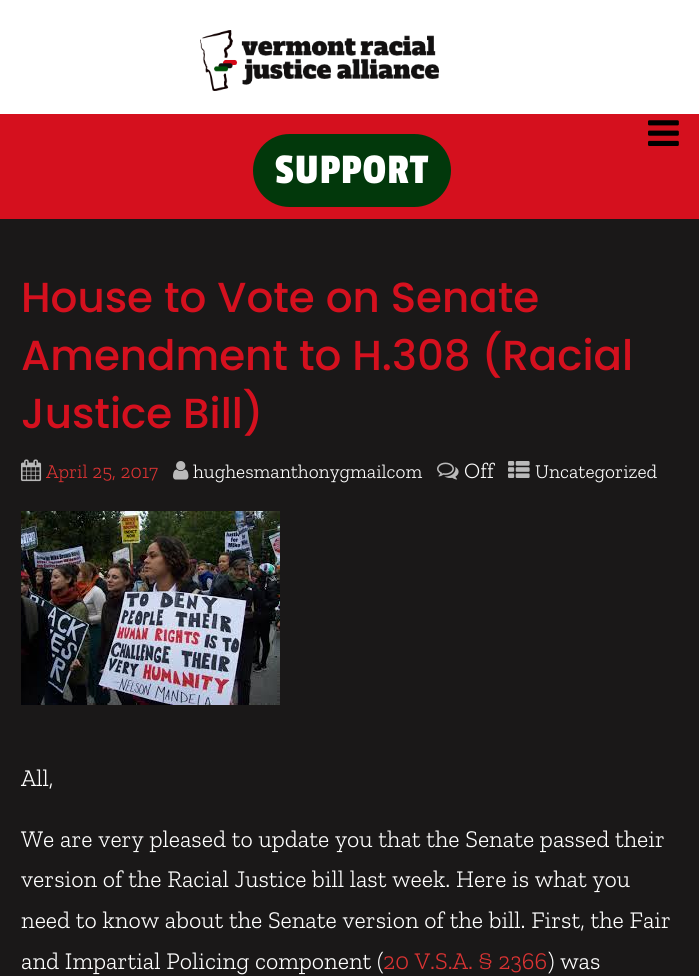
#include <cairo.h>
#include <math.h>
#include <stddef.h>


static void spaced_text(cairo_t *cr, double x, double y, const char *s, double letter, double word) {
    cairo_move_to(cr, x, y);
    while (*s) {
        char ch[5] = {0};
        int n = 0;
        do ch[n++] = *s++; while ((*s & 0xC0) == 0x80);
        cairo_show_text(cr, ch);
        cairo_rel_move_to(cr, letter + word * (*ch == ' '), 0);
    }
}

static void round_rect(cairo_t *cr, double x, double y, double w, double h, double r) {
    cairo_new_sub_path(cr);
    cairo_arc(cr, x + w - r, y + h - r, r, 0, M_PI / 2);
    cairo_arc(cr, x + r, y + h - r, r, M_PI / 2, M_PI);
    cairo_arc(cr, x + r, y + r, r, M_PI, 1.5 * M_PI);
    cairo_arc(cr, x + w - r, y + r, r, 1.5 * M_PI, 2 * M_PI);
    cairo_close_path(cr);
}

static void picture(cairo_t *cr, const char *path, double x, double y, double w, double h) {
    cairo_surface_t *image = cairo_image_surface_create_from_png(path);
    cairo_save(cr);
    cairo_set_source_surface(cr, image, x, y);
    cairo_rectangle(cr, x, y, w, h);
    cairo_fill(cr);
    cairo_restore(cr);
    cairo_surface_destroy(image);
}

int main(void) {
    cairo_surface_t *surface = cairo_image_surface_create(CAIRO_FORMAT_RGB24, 699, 976);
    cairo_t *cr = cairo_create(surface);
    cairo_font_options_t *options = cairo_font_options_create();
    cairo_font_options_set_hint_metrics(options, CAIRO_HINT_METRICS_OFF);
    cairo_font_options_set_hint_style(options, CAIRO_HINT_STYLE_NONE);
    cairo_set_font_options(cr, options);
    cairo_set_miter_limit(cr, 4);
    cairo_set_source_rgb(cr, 0.102, 0.094, 0.094);
    cairo_paint(cr);
    cairo_set_source_rgb(cr, 0.835, 0.063, 0.118);
    cairo_rectangle(cr, 0, 114, 699, 105);
    cairo_fill(cr);
    cairo_set_source_rgb(cr, 1, 1, 1);
    cairo_rectangle(cr, 0, 0, 699, 114);
    cairo_fill(cr);
    picture(cr, "img1.png", 200, 30, 239, 61);
    picture(cr, "img2.png", 648, 120, 31, 26);
    cairo_set_source_rgb(cr, 0.008, 0.22, 0.043);
    round_rect(cr, 253, 134, 198, 73, 36.5);
    cairo_fill(cr);
    cairo_select_font_face(cr, "Passion One", CAIRO_FONT_SLANT_NORMAL, CAIRO_FONT_WEIGHT_NORMAL);
    cairo_set_font_size(cr, 44);
    cairo_set_source_rgb(cr, 1, 1, 1);
    spaced_text(cr, 275, 183, "SUPPORT", 1, 0);
    cairo_select_font_face(cr, "Poppins Medium", CAIRO_FONT_SLANT_NORMAL, CAIRO_FONT_WEIGHT_NORMAL);
    cairo_set_font_size(cr, 42);
    cairo_set_source_rgb(cr, 0.835, 0.063, 0.118);
    cairo_move_to(cr, 21, 312);
    cairo_show_text(cr, "House to Vote on Senate");
    cairo_move_to(cr, 21, 370);
    cairo_show_text(cr, "Amendment to H.308 (Racial");
    cairo_move_to(cr, 21, 428);
    cairo_show_text(cr, "Justice Bill)");
    picture(cr, "img3.png", 21, 459, 21, 23);
    cairo_select_font_face(cr, "Zilla Slab Light", CAIRO_FONT_SLANT_NORMAL, CAIRO_FONT_WEIGHT_NORMAL);
    cairo_set_font_size(cr, 19.5);
    cairo_set_source_rgb(cr, 0.867, 0.2, 0.2);
    cairo_move_to(cr, 46, 478);
    cairo_show_text(cr, "April 25, 2017");
    picture(cr, "img4.png", 173, 461, 16, 19);
    cairo_set_source_rgb(cr, 1, 1, 1);
    cairo_move_to(cr, 193, 478);
    cairo_show_text(cr, "hughesmanthonygmailcom");
    picture(cr, "img5.png", 437, 462, 22, 18);
    cairo_set_font_size(cr, 22);
    cairo_move_to(cr, 464, 478);
    cairo_show_text(cr, "Off");
    picture(cr, "img6.png", 508, 461, 22, 17);
    cairo_set_font_size(cr, 19.5);
    cairo_move_to(cr, 535, 478);
    cairo_show_text(cr, "Uncategorized");
    picture(cr, "img7.png", 21, 511, 259, 194);
    cairo_set_font_size(cr, 24);
    cairo_move_to(cr, 21, 786);
    cairo_show_text(cr, "All,");
    cairo_move_to(cr, 21, 847);
    cairo_show_text(cr, "We are very pleased to update you that the Senate passed their");
    cairo_move_to(cr, 21, 887);
    cairo_show_text(cr, "version of the Racial Justice bill last week. Here is what you");
    cairo_move_to(cr, 21, 928);
    cairo_show_text(cr, "need to know about the Senate version of the bill. First, the Fair");
    cairo_move_to(cr, 21, 969);
    cairo_show_text(cr, "and Impartial Policing component (");
    cairo_set_source_rgb(cr, 0.867, 0.2, 0.2);
    cairo_move_to(cr, 383, 969);
    cairo_show_text(cr, "20 V.S.A. § 2366");
    cairo_set_source_rgb(cr, 1, 1, 1);
    cairo_move_to(cr, 548, 969);
    cairo_show_text(cr, ") was");
    cairo_surface_write_to_png(surface, "page.png");
    cairo_font_options_destroy(options);
    cairo_destroy(cr);
    cairo_surface_destroy(surface);
    return 0;
}
